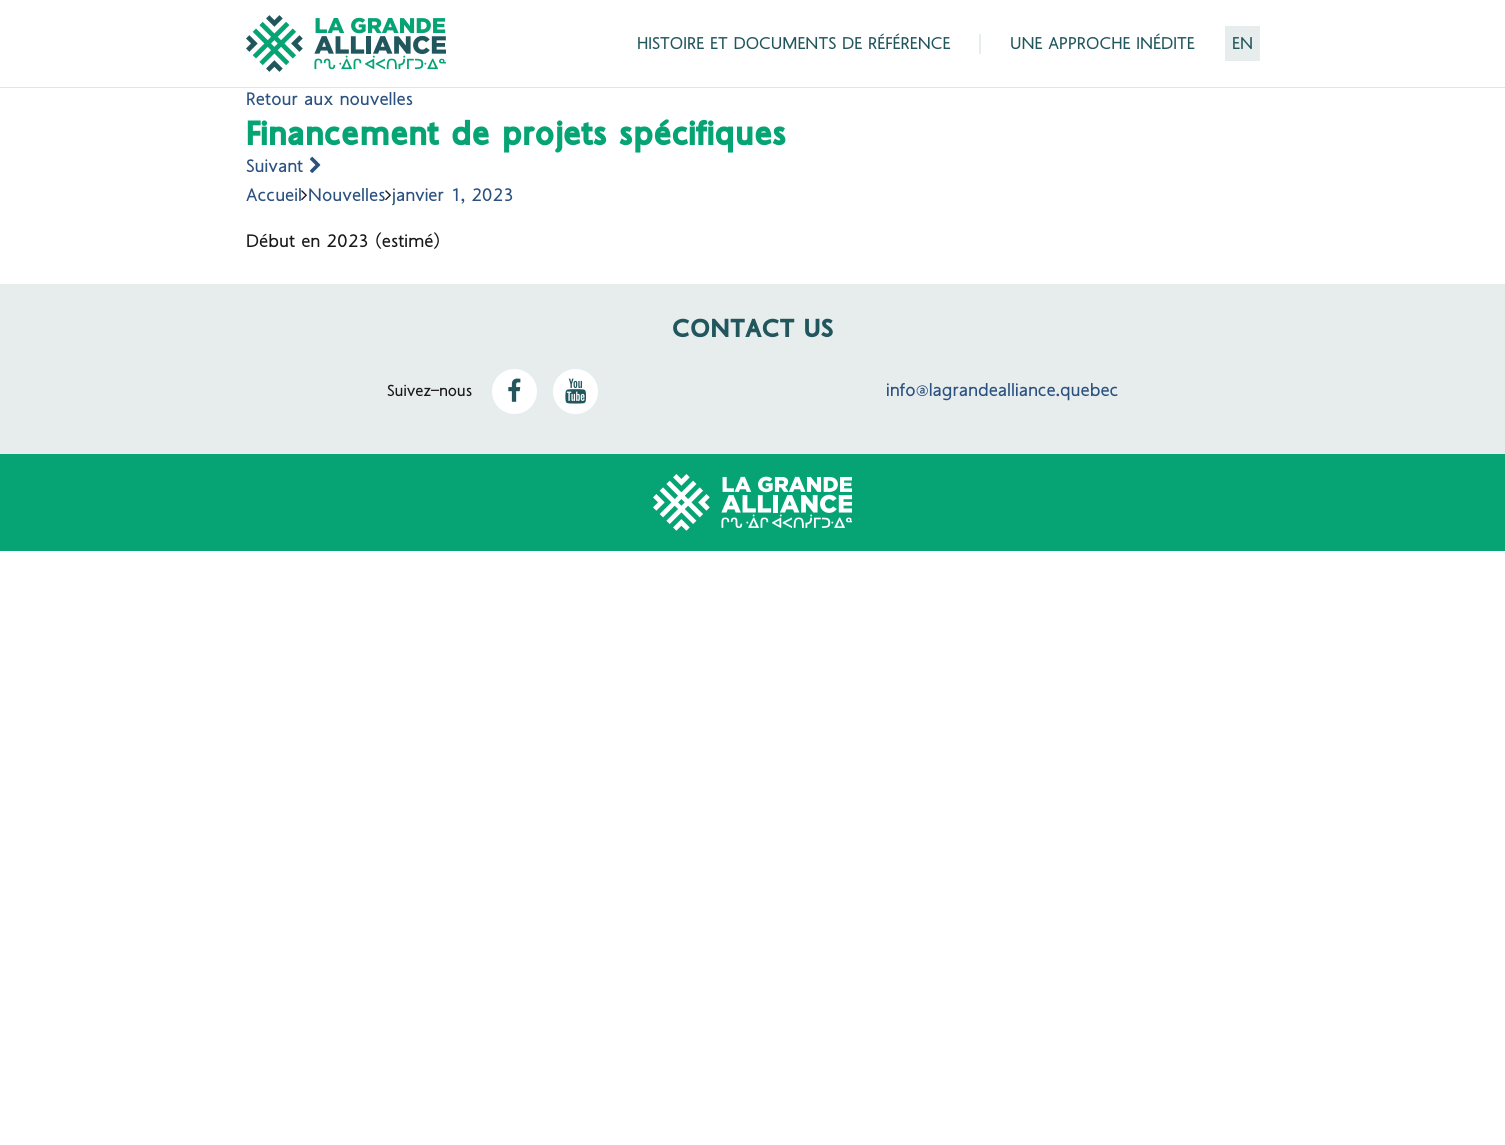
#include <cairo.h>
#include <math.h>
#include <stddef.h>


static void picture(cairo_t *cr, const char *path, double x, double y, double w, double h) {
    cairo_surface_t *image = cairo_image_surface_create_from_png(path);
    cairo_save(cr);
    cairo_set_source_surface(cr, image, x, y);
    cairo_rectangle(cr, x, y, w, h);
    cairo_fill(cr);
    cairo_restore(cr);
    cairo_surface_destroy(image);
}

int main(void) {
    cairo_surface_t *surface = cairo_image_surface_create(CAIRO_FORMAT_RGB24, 1505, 1145);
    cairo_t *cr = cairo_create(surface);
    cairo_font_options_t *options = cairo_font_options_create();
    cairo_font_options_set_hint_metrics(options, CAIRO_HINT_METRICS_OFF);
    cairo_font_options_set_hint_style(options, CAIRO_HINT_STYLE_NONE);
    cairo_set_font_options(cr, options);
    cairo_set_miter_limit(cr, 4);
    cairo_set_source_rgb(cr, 1, 1, 1);
    cairo_paint(cr);
    cairo_set_source_rgb(cr, 0.898, 0.898, 0.898);
    cairo_rectangle(cr, 0, 87, 1505, 1);
    cairo_fill(cr);
    picture(cr, "img1.png", 246, 15, 200, 57);
    cairo_select_font_face(cr, "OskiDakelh", CAIRO_FONT_SLANT_NORMAL, CAIRO_FONT_WEIGHT_NORMAL);
    cairo_set_font_size(cr, 17);
    cairo_set_source_rgb(cr, 0.129, 0.337, 0.365);
    cairo_move_to(cr, 637, 49);
    cairo_show_text(cr, "HISTOIRE ET DOCUMENTS DE RÉFÉRENCE");
    cairo_set_source_rgb(cr, 0.906, 0.929, 0.929);
    cairo_rectangle(cr, 979, 34, 2, 20);
    cairo_fill(cr);
    cairo_set_source_rgb(cr, 0.129, 0.337, 0.365);
    cairo_move_to(cr, 1010, 49);
    cairo_show_text(cr, "UNE APPROCHE INÉDITE");
    cairo_set_source_rgb(cr, 0.906, 0.929, 0.929);
    cairo_rectangle(cr, 1225, 26, 35, 35);
    cairo_fill(cr);
    cairo_set_source_rgb(cr, 0.129, 0.337, 0.365);
    cairo_move_to(cr, 1232, 49);
    cairo_show_text(cr, "EN");
    cairo_set_font_size(cr, 18);
    cairo_set_source_rgb(cr, 0.169, 0.318, 0.502);
    cairo_move_to(cr, 246, 105);
    cairo_show_text(cr, "Retour aux nouvelles");
    cairo_select_font_face(cr, "OskiDakelh", CAIRO_FONT_SLANT_NORMAL, CAIRO_FONT_WEIGHT_BOLD);
    cairo_set_font_size(cr, 35);
    cairo_set_source_rgb(cr, 0.024, 0.639, 0.455);
    cairo_move_to(cr, 246, 145);
    cairo_show_text(cr, "Financement de projets spécifiques");
    cairo_select_font_face(cr, "OskiDakelh", CAIRO_FONT_SLANT_NORMAL, CAIRO_FONT_WEIGHT_NORMAL);
    cairo_set_font_size(cr, 18);
    cairo_set_source_rgb(cr, 0.169, 0.318, 0.502);
    cairo_move_to(cr, 246, 172);
    cairo_show_text(cr, "Suivant");
    picture(cr, "img2.png", 309, 156, 12, 17);
    cairo_move_to(cr, 246, 201);
    cairo_show_text(cr, "Accueil Nouvelles janvier 1, 2023");
    picture(cr, "img3.png", 301, 190, 6, 11);
    picture(cr, "img3.png", 385, 190, 6, 11);
    cairo_set_source_rgb(cr, 0.098, 0.098, 0.098);
    cairo_move_to(cr, 246, 247);
    cairo_show_text(cr, "Début en 2023 (estimé)");
    cairo_set_source_rgb(cr, 0.906, 0.929, 0.929);
    cairo_rectangle(cr, 0, 284, 1505, 170);
    cairo_fill(cr);
    cairo_select_font_face(cr, "OskiDakelh", CAIRO_FONT_SLANT_NORMAL, CAIRO_FONT_WEIGHT_BOLD);
    cairo_set_font_size(cr, 26);
    cairo_set_source_rgb(cr, 0.129, 0.337, 0.365);
    cairo_move_to(cr, 672, 337);
    cairo_show_text(cr, "CONTACT US");
    cairo_select_font_face(cr, "OskiDakelh", CAIRO_FONT_SLANT_NORMAL, CAIRO_FONT_WEIGHT_NORMAL);
    cairo_set_font_size(cr, 16);
    cairo_set_source_rgb(cr, 0.098, 0.098, 0.098);
    cairo_move_to(cr, 387, 396);
    cairo_show_text(cr, "Suivez-nous");
    cairo_set_source_rgb(cr, 1, 1, 1);
    cairo_new_path(cr);
    cairo_arc(cr, 514.5, 391.5, 22.5, 0, 2 * M_PI);
    cairo_fill(cr);
    picture(cr, "img4.png", 508, 378, 13, 24);
    cairo_arc(cr, 575.5, 391.5, 22.5, 0, 2 * M_PI);
    cairo_fill(cr);
    picture(cr, "img5.png", 565, 378, 22, 26);
    cairo_set_font_size(cr, 18);
    cairo_set_source_rgb(cr, 0.169, 0.318, 0.502);
    cairo_move_to(cr, 886, 396);
    cairo_show_text(cr, "info@lagrandealliance.quebec");
    cairo_set_source_rgb(cr, 0.024, 0.639, 0.455);
    cairo_rectangle(cr, 0, 454, 1505, 97);
    cairo_fill(cr);
    picture(cr, "img6.png", 653, 474, 199, 57);
    cairo_surface_write_to_png(surface, "page.png");
    cairo_font_options_destroy(options);
    cairo_destroy(cr);
    cairo_surface_destroy(surface);
    return 0;
}
